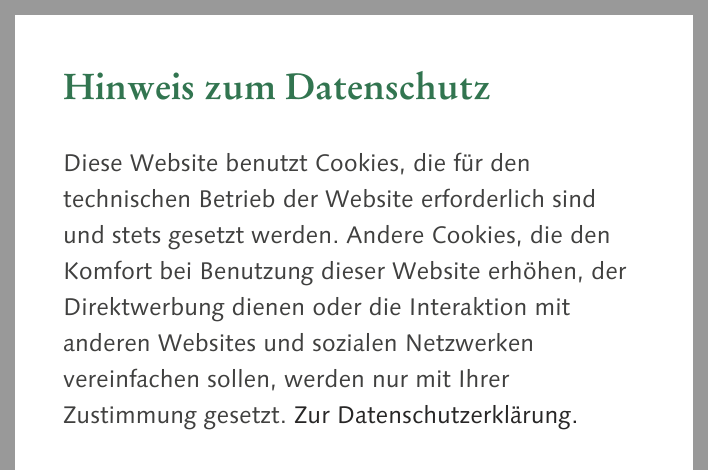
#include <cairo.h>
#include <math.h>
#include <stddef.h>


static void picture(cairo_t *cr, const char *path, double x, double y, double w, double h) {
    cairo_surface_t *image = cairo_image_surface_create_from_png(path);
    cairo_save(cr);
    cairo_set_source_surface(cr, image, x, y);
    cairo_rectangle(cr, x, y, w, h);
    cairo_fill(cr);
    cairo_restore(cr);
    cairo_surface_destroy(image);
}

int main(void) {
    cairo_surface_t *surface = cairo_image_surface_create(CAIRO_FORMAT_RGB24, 708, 470);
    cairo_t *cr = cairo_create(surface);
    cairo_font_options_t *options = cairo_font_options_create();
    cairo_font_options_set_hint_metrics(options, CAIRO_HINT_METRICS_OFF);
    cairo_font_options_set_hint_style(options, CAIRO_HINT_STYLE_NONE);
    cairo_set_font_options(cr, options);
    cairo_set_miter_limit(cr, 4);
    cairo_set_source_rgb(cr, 0.6, 0.6, 0.6);
    cairo_paint(cr);
    cairo_set_source_rgb(cr, 1, 1, 1);
    cairo_rectangle(cr, 15, 15, 678, 455);
    cairo_fill(cr);
    picture(cr, "img1.png", 64, 70, 426, 30);
    cairo_select_font_face(cr, "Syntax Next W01", CAIRO_FONT_SLANT_NORMAL, CAIRO_FONT_WEIGHT_NORMAL);
    cairo_set_font_size(cr, 24);
    cairo_set_source_rgb(cr, 0.251, 0.251, 0.247);
    cairo_move_to(cr, 63, 171);
    cairo_show_text(cr, "Diese Website benutzt Cookies, die für den");
    cairo_move_to(cr, 63, 207);
    cairo_show_text(cr, "technischen Betrieb der Website erforderlich sind");
    cairo_move_to(cr, 63, 243);
    cairo_show_text(cr, "und stets gesetzt werden. Andere Cookies, die den");
    cairo_move_to(cr, 63, 279);
    cairo_show_text(cr, "Komfort bei Benutzung dieser Website erhöhen, der");
    cairo_move_to(cr, 63, 315);
    cairo_show_text(cr, "Direktwerbung dienen oder die Interaktion mit");
    cairo_move_to(cr, 63, 351);
    cairo_show_text(cr, "anderen Websites und sozialen Netzwerken");
    cairo_move_to(cr, 63, 387);
    cairo_show_text(cr, "vereinfachen sollen, werden nur mit Ihrer");
    cairo_move_to(cr, 63, 423);
    cairo_show_text(cr, "Zustimmung gesetzt.");
    cairo_set_source_rgb(cr, 0.153, 0.149, 0.149);
    cairo_move_to(cr, 294, 423);
    cairo_show_text(cr, "Zur Datenschutzerklärung.");
    cairo_surface_write_to_png(surface, "page.png");
    cairo_font_options_destroy(options);
    cairo_destroy(cr);
    cairo_surface_destroy(surface);
    return 0;
}
